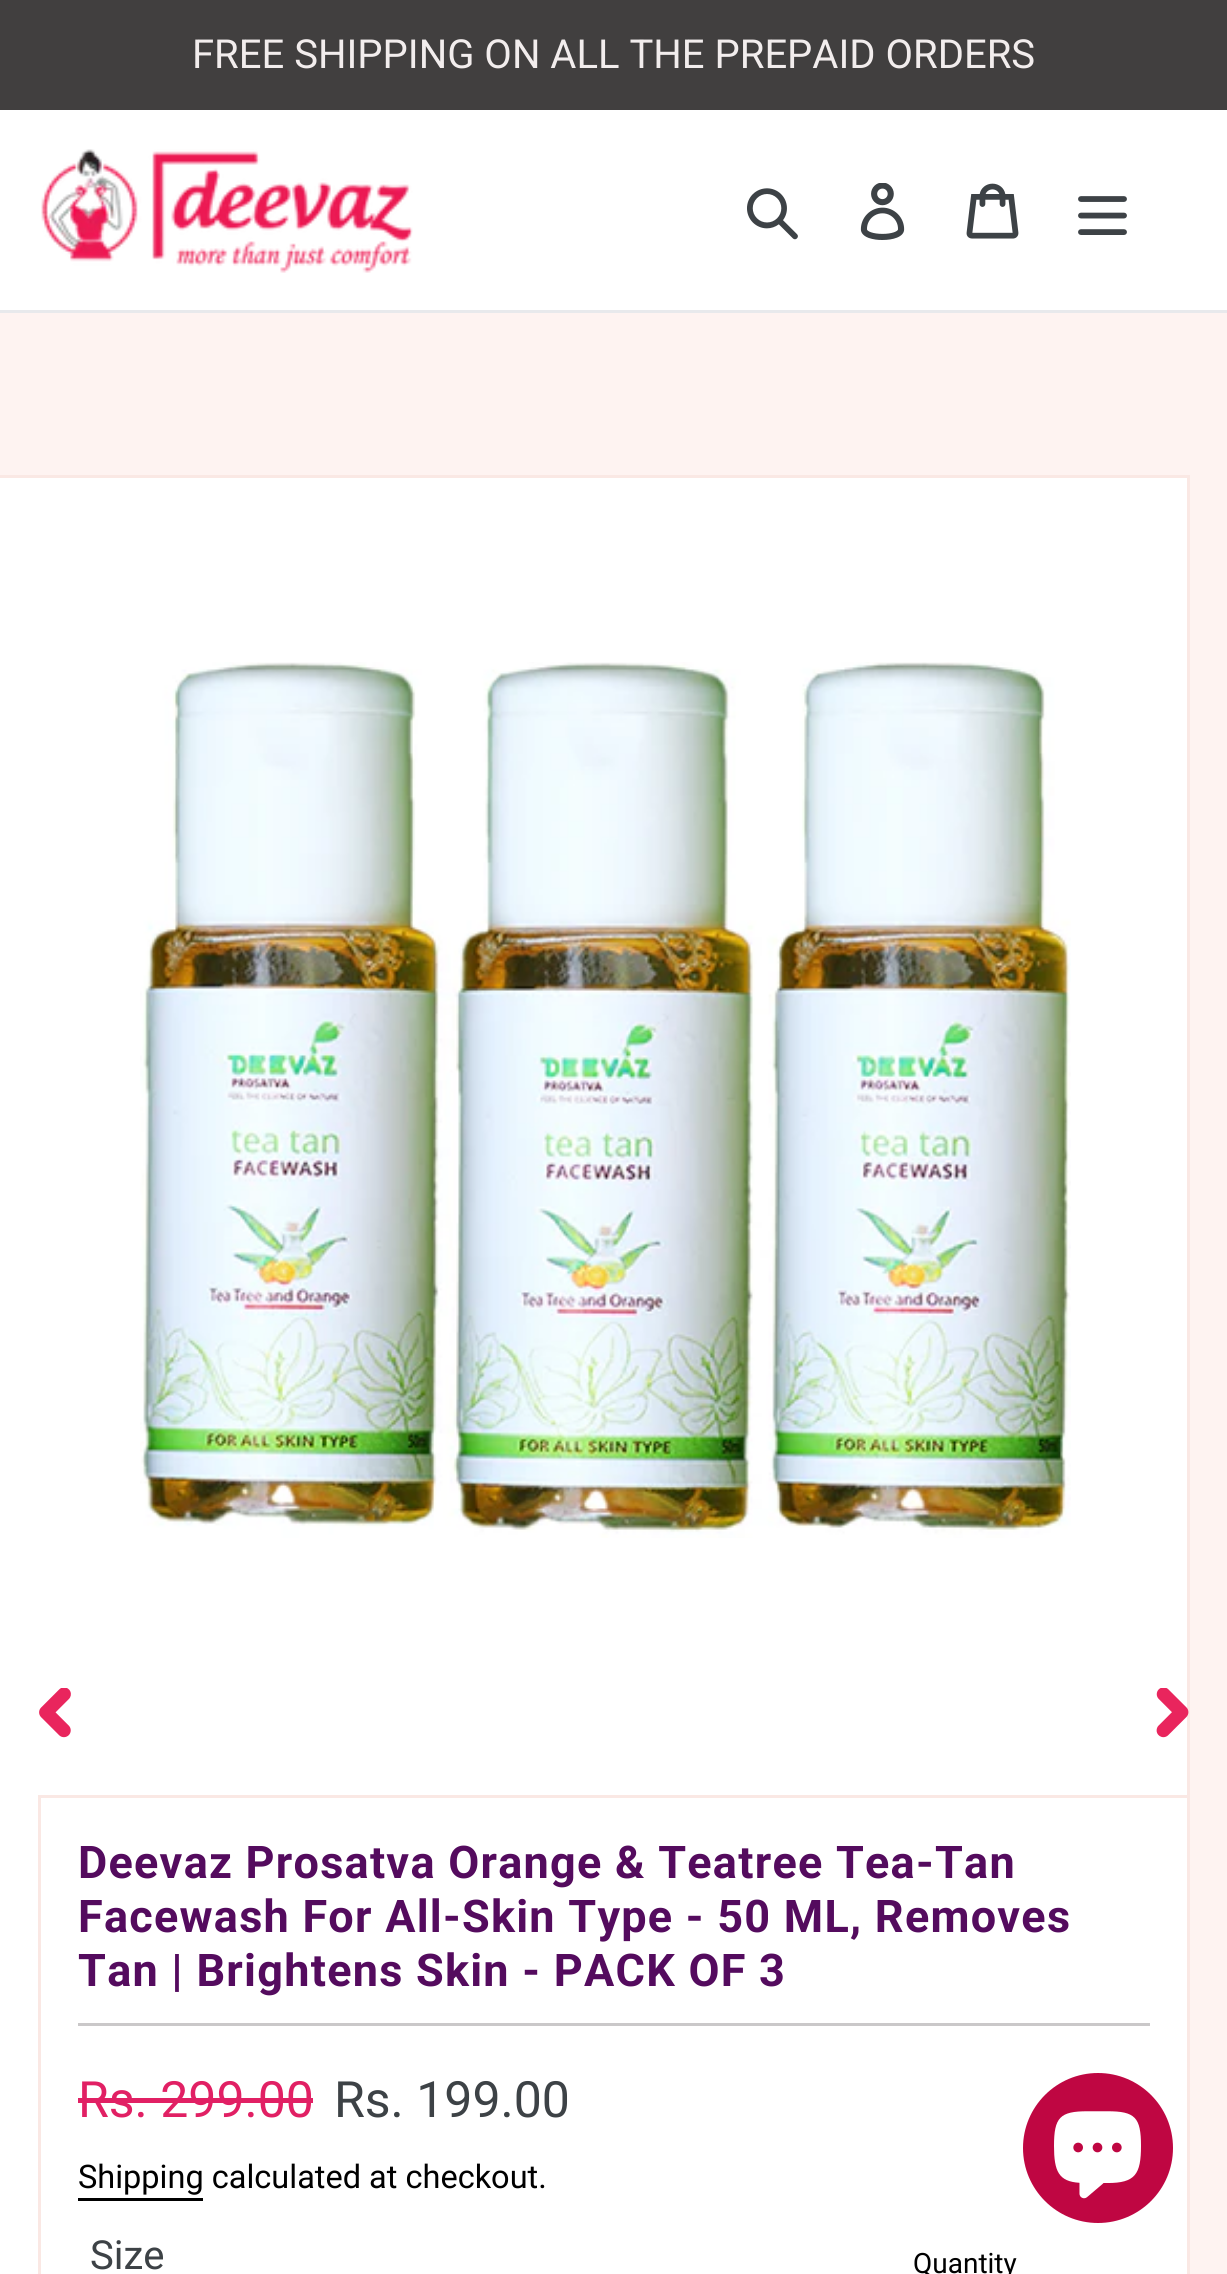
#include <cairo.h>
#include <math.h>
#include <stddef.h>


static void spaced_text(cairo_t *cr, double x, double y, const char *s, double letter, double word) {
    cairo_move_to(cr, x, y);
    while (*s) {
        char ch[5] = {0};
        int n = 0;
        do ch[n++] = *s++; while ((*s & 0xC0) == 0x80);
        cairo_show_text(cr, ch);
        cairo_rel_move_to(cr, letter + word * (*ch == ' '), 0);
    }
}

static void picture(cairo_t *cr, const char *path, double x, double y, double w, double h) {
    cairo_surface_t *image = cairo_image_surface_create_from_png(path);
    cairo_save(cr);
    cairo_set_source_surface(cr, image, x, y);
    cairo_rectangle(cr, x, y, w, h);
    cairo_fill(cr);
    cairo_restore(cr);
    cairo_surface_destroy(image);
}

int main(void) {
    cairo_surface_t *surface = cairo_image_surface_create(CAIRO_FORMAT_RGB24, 1227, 2274);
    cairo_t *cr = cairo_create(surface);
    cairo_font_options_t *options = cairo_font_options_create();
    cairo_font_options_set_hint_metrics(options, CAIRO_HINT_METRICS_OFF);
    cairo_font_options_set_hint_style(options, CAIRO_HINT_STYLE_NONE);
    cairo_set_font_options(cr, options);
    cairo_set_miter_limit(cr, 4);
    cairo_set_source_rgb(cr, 1, 1, 1);
    cairo_paint(cr);
    cairo_set_source_rgb(cr, 0.255, 0.247, 0.247);
    cairo_rectangle(cr, 0, 0, 1227, 110);
    cairo_fill(cr);
    cairo_select_font_face(cr, "Roboto", CAIRO_FONT_SLANT_NORMAL, CAIRO_FONT_WEIGHT_NORMAL);
    cairo_set_font_size(cr, 40);
    cairo_set_source_rgb(cr, 0.949, 0.929, 0.929);
    cairo_move_to(cr, 192, 68);
    cairo_show_text(cr, "FREE SHIPPING ON ALL THE PREPAID ORDERS");
    picture(cr, "img1.png", 41, 149, 372, 124);
    picture(cr, "img2.png", 747, 188, 51, 52);
    picture(cr, "img3.png", 860, 183, 45, 57);
    picture(cr, "img4.png", 966, 183, 53, 56);
    picture(cr, "img5.png", 1078, 196, 49, 39);
    cairo_set_source_rgb(cr, 0.996, 0.953, 0.945);
    cairo_rectangle(cr, 0, 313, 1227, 1961);
    cairo_fill(cr);
    cairo_set_source_rgb(cr, 0.91, 0.914, 0.922);
    cairo_rectangle(cr, 0, 310, 1227, 3);
    cairo_fill(cr);
    cairo_set_source_rgb(cr, 1, 1, 1);
    cairo_rectangle(cr, -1.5, 476.5, 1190, 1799);
    cairo_fill_preserve(cr);
    cairo_set_source_rgb(cr, 0.98, 0.91, 0.894);
    cairo_set_line_width(cr, 3);
    cairo_stroke(cr);
    picture(cr, "img6.png", 140, 662, 931, 876);
    picture(cr, "img7.png", 39, 1688, 32, 50);
    picture(cr, "img8.png", 1156, 1688, 33, 50);
    cairo_rectangle(cr, 39.5, 1796.5, 1149, 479);
    cairo_stroke(cr);
    cairo_set_source_rgb(cr, 0.792, 0.784, 0.788);
    cairo_rectangle(cr, 78, 2023, 1072, 3);
    cairo_fill(cr);
    cairo_select_font_face(cr, "Roboto", CAIRO_FONT_SLANT_NORMAL, CAIRO_FONT_WEIGHT_BOLD);
    cairo_set_font_size(cr, 45);
    cairo_set_source_rgb(cr, 0.329, 0.043, 0.369);
    spaced_text(cr, 78, 1878, "Deevaz Prosatva Orange & Teatree Tea-Tan", 1.25, 0);
    spaced_text(cr, 78, 1932, "Facewash For All-Skin Type - 50 ML, Removes", 1.25, 0);
    spaced_text(cr, 78, 1986, "Tan | Brightens Skin - PACK OF 3", 1.25, 0);
    cairo_select_font_face(cr, "Roboto", CAIRO_FONT_SLANT_NORMAL, CAIRO_FONT_WEIGHT_NORMAL);
    cairo_set_font_size(cr, 50);
    cairo_set_source_rgb(cr, 0.882, 0.125, 0.392);
    cairo_move_to(cr, 78, 2117);
    cairo_show_text(cr, "Rs. 299.00");
    cairo_rectangle(cr, 78, 2098, 235, 5);
    cairo_fill(cr);
    cairo_set_source_rgb(cr, 0.239, 0.259, 0.275);
    cairo_move_to(cr, 334, 2117);
    cairo_show_text(cr, "Rs. 199.00");
    cairo_set_font_size(cr, 32.5);
    cairo_set_source_rgb(cr, 0, 0, 0);
    cairo_move_to(cr, 78, 2188);
    cairo_show_text(cr, "Shipping calculated at checkout.");
    cairo_rectangle(cr, 78, 2198, 125, 3);
    cairo_fill(cr);
    cairo_set_font_size(cr, 40);
    cairo_set_source_rgb(cr, 0.239, 0.259, 0.275);
    cairo_move_to(cr, 90, 2269);
    cairo_show_text(cr, "Size");
    cairo_set_font_size(cr, 28);
    cairo_set_source_rgb(cr, 0, 0, 0);
    cairo_move_to(cr, 913, 2273);
    cairo_show_text(cr, "Quantity");
    cairo_set_source_rgb(cr, 0.749, 0.024, 0.259);
    cairo_new_path(cr);
    cairo_arc(cr, 1098, 2148, 75, 0, 2 * M_PI);
    cairo_fill(cr);
    picture(cr, "img9.png", 1054, 2111, 87, 88);
    cairo_surface_write_to_png(surface, "page.png");
    cairo_font_options_destroy(options);
    cairo_destroy(cr);
    cairo_surface_destroy(surface);
    return 0;
}
